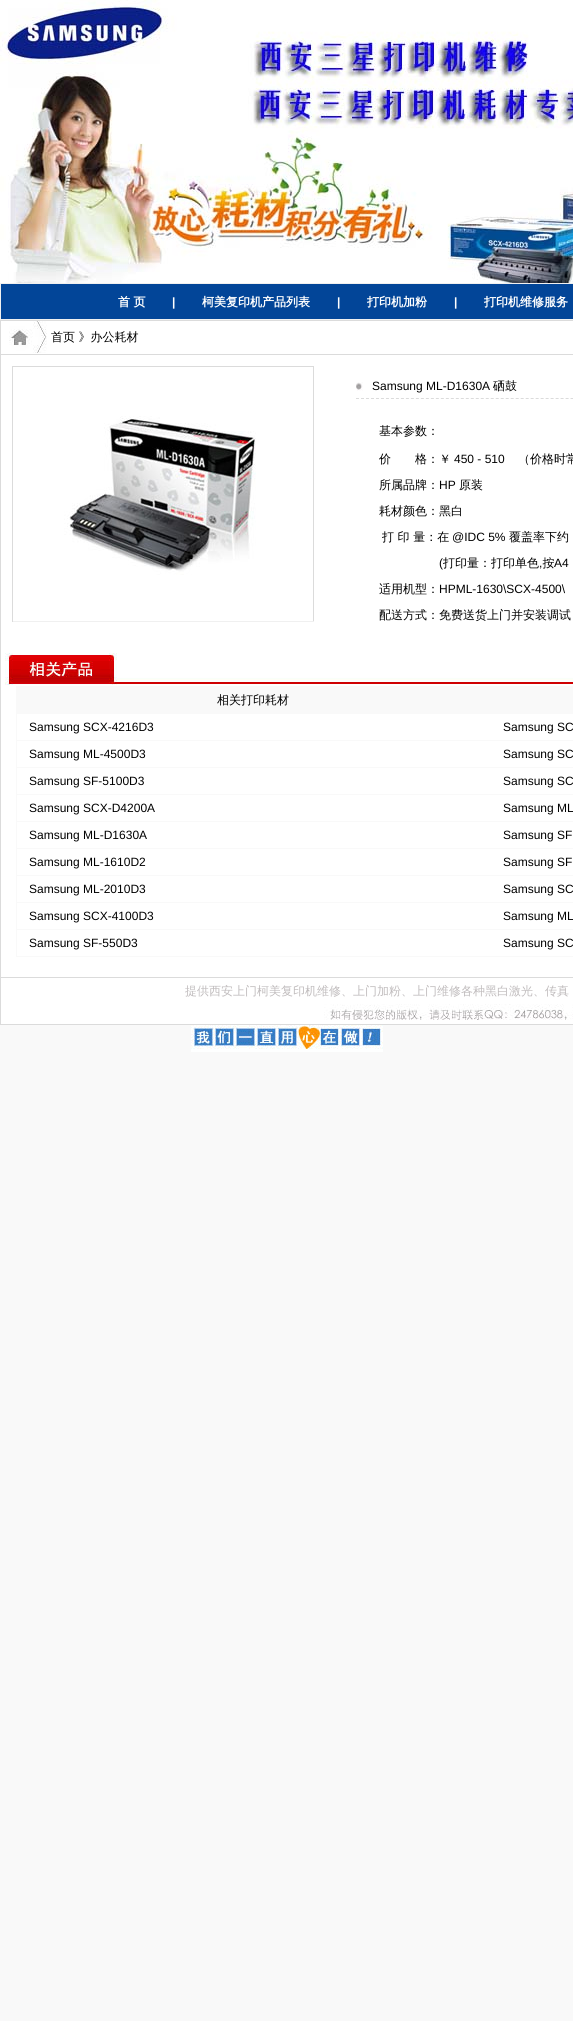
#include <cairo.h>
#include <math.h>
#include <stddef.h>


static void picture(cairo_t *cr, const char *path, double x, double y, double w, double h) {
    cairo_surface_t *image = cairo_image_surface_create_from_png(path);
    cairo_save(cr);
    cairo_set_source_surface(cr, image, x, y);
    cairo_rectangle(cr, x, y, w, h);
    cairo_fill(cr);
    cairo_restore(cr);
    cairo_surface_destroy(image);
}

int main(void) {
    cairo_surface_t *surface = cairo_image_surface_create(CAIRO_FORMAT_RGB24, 573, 2021);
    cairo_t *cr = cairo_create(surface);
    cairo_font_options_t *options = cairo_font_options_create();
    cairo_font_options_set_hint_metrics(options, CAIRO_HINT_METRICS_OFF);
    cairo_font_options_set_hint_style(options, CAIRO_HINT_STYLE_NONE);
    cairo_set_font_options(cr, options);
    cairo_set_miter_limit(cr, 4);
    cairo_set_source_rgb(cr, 0.973, 0.973, 0.973);
    cairo_paint(cr);
    picture(cr, "img1.png", 0, 0, 573, 283);
    cairo_set_source_rgb(cr, 0.008, 0.271, 0.596);
    cairo_rectangle(cr, 0.5, 283.5, 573, 36);
    cairo_fill_preserve(cr);
    cairo_set_source_rgb(cr, 0.941, 0.941, 0.941);
    cairo_set_line_width(cr, 1);
    cairo_stroke(cr);
    cairo_select_font_face(cr, "WenQuanYi Zen Hei", CAIRO_FONT_SLANT_NORMAL, CAIRO_FONT_WEIGHT_BOLD);
    cairo_set_font_size(cr, 12);
    cairo_set_source_rgb(cr, 1, 1, 1);
    cairo_move_to(cr, 118, 306);
    cairo_show_text(cr, "首 页");
    cairo_select_font_face(cr, "Liberation Sans", CAIRO_FONT_SLANT_NORMAL, CAIRO_FONT_WEIGHT_BOLD);
    cairo_move_to(cr, 172, 306);
    cairo_show_text(cr, "|");
    cairo_select_font_face(cr, "WenQuanYi Zen Hei", CAIRO_FONT_SLANT_NORMAL, CAIRO_FONT_WEIGHT_BOLD);
    cairo_move_to(cr, 202, 306);
    cairo_show_text(cr, "柯美复印机产品列表");
    cairo_select_font_face(cr, "Liberation Sans", CAIRO_FONT_SLANT_NORMAL, CAIRO_FONT_WEIGHT_BOLD);
    cairo_move_to(cr, 337, 306);
    cairo_show_text(cr, "|");
    cairo_select_font_face(cr, "WenQuanYi Zen Hei", CAIRO_FONT_SLANT_NORMAL, CAIRO_FONT_WEIGHT_BOLD);
    cairo_move_to(cr, 367, 306);
    cairo_show_text(cr, "打印机加粉");
    cairo_select_font_face(cr, "Liberation Sans", CAIRO_FONT_SLANT_NORMAL, CAIRO_FONT_WEIGHT_BOLD);
    cairo_move_to(cr, 454, 306);
    cairo_show_text(cr, "|");
    cairo_select_font_face(cr, "WenQuanYi Zen Hei", CAIRO_FONT_SLANT_NORMAL, CAIRO_FONT_WEIGHT_BOLD);
    cairo_move_to(cr, 484, 306);
    cairo_show_text(cr, "打印机维修服务");
    cairo_rectangle(cr, 1, 321, 572, 656);
    cairo_fill(cr);
    cairo_set_source_rgb(cr, 0.859, 0.859, 0.859);
    cairo_rectangle(cr, 0, 320, 573, 1);
    cairo_fill(cr);
    cairo_rectangle(cr, 0, 320, 1, 657);
    cairo_fill(cr);
    picture(cr, "img2.png", 9, 321, 38, 32);
    cairo_rectangle(cr, 1, 354, 572, 1);
    cairo_fill(cr);
    cairo_select_font_face(cr, "WenQuanYi Zen Hei Medium", CAIRO_FONT_SLANT_NORMAL, CAIRO_FONT_WEIGHT_NORMAL);
    cairo_set_source_rgb(cr, 0, 0, 0);
    cairo_move_to(cr, 51, 341);
    cairo_show_text(cr, "首页 》办公耗材");
    cairo_set_source_rgb(cr, 0.859, 0.859, 0.859);
    cairo_rectangle(cr, 12, 366, 302, 1);
    cairo_fill(cr);
    cairo_rectangle(cr, 313, 366, 1, 256);
    cairo_fill(cr);
    cairo_set_source_rgb(cr, 0.941, 0.941, 0.941);
    cairo_rectangle(cr, 12, 621, 302, 1);
    cairo_fill(cr);
    cairo_set_source_rgb(cr, 0.859, 0.859, 0.859);
    cairo_rectangle(cr, 12, 366, 1, 256);
    cairo_fill(cr);
    picture(cr, "img3.png", 64, 416, 192, 159);
    picture(cr, "img4.png", 356, 382, 7, 9);
    cairo_new_path(cr);
    cairo_move_to(cr, 356, 398.5);
    cairo_line_to(cr, 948, 398.5);
    cairo_set_dash(cr, (double[]){3, 1.99}, 2, 0);
    cairo_stroke(cr);
    cairo_select_font_face(cr, "Liberation Sans", CAIRO_FONT_SLANT_NORMAL, CAIRO_FONT_WEIGHT_NORMAL);
    cairo_set_source_rgb(cr, 0, 0, 0);
    cairo_move_to(cr, 372, 390);
    cairo_show_text(cr, "Samsung ML-D1630A");
    cairo_select_font_face(cr, "WenQuanYi Zen Hei Medium", CAIRO_FONT_SLANT_NORMAL, CAIRO_FONT_WEIGHT_NORMAL);
    cairo_move_to(cr, 493, 390);
    cairo_show_text(cr, "硒鼓");
    cairo_move_to(cr, 379, 435);
    cairo_show_text(cr, "基本参数：");
    cairo_move_to(cr, 379, 463);
    cairo_show_text(cr, "价　　格：￥");
    cairo_select_font_face(cr, "Liberation Sans", CAIRO_FONT_SLANT_NORMAL, CAIRO_FONT_WEIGHT_NORMAL);
    cairo_move_to(cr, 454, 463);
    cairo_show_text(cr, "450 - 510");
    cairo_select_font_face(cr, "WenQuanYi Zen Hei Medium", CAIRO_FONT_SLANT_NORMAL, CAIRO_FONT_WEIGHT_NORMAL);
    cairo_move_to(cr, 518, 463);
    cairo_show_text(cr, "（价格时常");
    cairo_move_to(cr, 379, 489);
    cairo_show_text(cr, "所属品牌：");
    cairo_select_font_face(cr, "Liberation Sans", CAIRO_FONT_SLANT_NORMAL, CAIRO_FONT_WEIGHT_NORMAL);
    cairo_move_to(cr, 439, 489);
    cairo_show_text(cr, "HP");
    cairo_select_font_face(cr, "WenQuanYi Zen Hei Medium", CAIRO_FONT_SLANT_NORMAL, CAIRO_FONT_WEIGHT_NORMAL);
    cairo_move_to(cr, 459, 489);
    cairo_show_text(cr, "原装");
    cairo_move_to(cr, 379, 515);
    cairo_show_text(cr, "耗材颜色：黑白");
    cairo_move_to(cr, 382, 541);
    cairo_show_text(cr, "打 印 量：在");
    cairo_select_font_face(cr, "Liberation Sans", CAIRO_FONT_SLANT_NORMAL, CAIRO_FONT_WEIGHT_NORMAL);
    cairo_move_to(cr, 452, 541);
    cairo_show_text(cr, "@IDC 5%");
    cairo_select_font_face(cr, "WenQuanYi Zen Hei Medium", CAIRO_FONT_SLANT_NORMAL, CAIRO_FONT_WEIGHT_NORMAL);
    cairo_move_to(cr, 509, 541);
    cairo_show_text(cr, "覆盖率下约");
    cairo_select_font_face(cr, "Liberation Sans", CAIRO_FONT_SLANT_NORMAL, CAIRO_FONT_WEIGHT_NORMAL);
    cairo_move_to(cr, 439, 567);
    cairo_show_text(cr, "(");
    cairo_select_font_face(cr, "WenQuanYi Zen Hei Medium", CAIRO_FONT_SLANT_NORMAL, CAIRO_FONT_WEIGHT_NORMAL);
    cairo_move_to(cr, 443, 567);
    cairo_show_text(cr, "打印量：打印单色 按");
    cairo_select_font_face(cr, "Liberation Sans", CAIRO_FONT_SLANT_NORMAL, CAIRO_FONT_WEIGHT_NORMAL);
    cairo_move_to(cr, 554, 567);
    cairo_show_text(cr, "A4");
    cairo_move_to(cr, 539, 567);
    cairo_show_text(cr, ",");
    cairo_select_font_face(cr, "WenQuanYi Zen Hei Medium", CAIRO_FONT_SLANT_NORMAL, CAIRO_FONT_WEIGHT_NORMAL);
    cairo_move_to(cr, 379, 593);
    cairo_show_text(cr, "适用机型：");
    cairo_select_font_face(cr, "Liberation Sans", CAIRO_FONT_SLANT_NORMAL, CAIRO_FONT_WEIGHT_NORMAL);
    cairo_move_to(cr, 439, 593);
    cairo_show_text(cr, "HPML-1630\\SCX-4500\\");
    cairo_select_font_face(cr, "WenQuanYi Zen Hei Medium", CAIRO_FONT_SLANT_NORMAL, CAIRO_FONT_WEIGHT_NORMAL);
    cairo_move_to(cr, 379, 619);
    cairo_show_text(cr, "配送方式：免费送货上门并安装调试");
    picture(cr, "img5.png", 5, 653, 568, 32);
    cairo_set_source_rgb(cr, 0.973, 0.973, 0.973);
    cairo_rectangle(cr, 16, 686, 557, 271);
    cairo_fill(cr);
    cairo_set_source_rgb(cr, 0, 0, 0);
    cairo_move_to(cr, 217, 704);
    cairo_show_text(cr, "相关打印耗材");
    cairo_set_source_rgb(cr, 1, 1, 1);
    cairo_rectangle(cr, 17, 714, 556, 26);
    cairo_fill(cr);
    cairo_select_font_face(cr, "Liberation Sans", CAIRO_FONT_SLANT_NORMAL, CAIRO_FONT_WEIGHT_NORMAL);
    cairo_set_source_rgb(cr, 0, 0, 0);
    cairo_move_to(cr, 29, 731);
    cairo_show_text(cr, "Samsung SCX-4216D3");
    cairo_move_to(cr, 503, 731);
    cairo_show_text(cr, "Samsung SC");
    cairo_set_source_rgb(cr, 1, 1, 1);
    cairo_rectangle(cr, 17, 741, 556, 26);
    cairo_fill(cr);
    cairo_set_source_rgb(cr, 0, 0, 0);
    cairo_move_to(cr, 29, 758);
    cairo_show_text(cr, "Samsung ML-4500D3");
    cairo_move_to(cr, 503, 758);
    cairo_show_text(cr, "Samsung SC");
    cairo_set_source_rgb(cr, 1, 1, 1);
    cairo_rectangle(cr, 17, 768, 556, 26);
    cairo_fill(cr);
    cairo_set_source_rgb(cr, 0, 0, 0);
    cairo_move_to(cr, 29, 785);
    cairo_show_text(cr, "Samsung SF-5100D3");
    cairo_move_to(cr, 503, 785);
    cairo_show_text(cr, "Samsung SC");
    cairo_set_source_rgb(cr, 1, 1, 1);
    cairo_rectangle(cr, 17, 795, 556, 26);
    cairo_fill(cr);
    cairo_set_source_rgb(cr, 0, 0, 0);
    cairo_move_to(cr, 29, 812);
    cairo_show_text(cr, "Samsung SCX-D4200A");
    cairo_move_to(cr, 503, 812);
    cairo_show_text(cr, "Samsung ML");
    cairo_set_source_rgb(cr, 1, 1, 1);
    cairo_rectangle(cr, 17, 822, 556, 26);
    cairo_fill(cr);
    cairo_set_source_rgb(cr, 0, 0, 0);
    cairo_move_to(cr, 29, 839);
    cairo_show_text(cr, "Samsung ML-D1630A");
    cairo_move_to(cr, 503, 839);
    cairo_show_text(cr, "Samsung SF");
    cairo_set_source_rgb(cr, 1, 1, 1);
    cairo_rectangle(cr, 17, 849, 556, 26);
    cairo_fill(cr);
    cairo_set_source_rgb(cr, 0, 0, 0);
    cairo_move_to(cr, 29, 866);
    cairo_show_text(cr, "Samsung ML-1610D2");
    cairo_move_to(cr, 503, 866);
    cairo_show_text(cr, "Samsung SF");
    cairo_set_source_rgb(cr, 1, 1, 1);
    cairo_rectangle(cr, 17, 876, 556, 26);
    cairo_fill(cr);
    cairo_set_source_rgb(cr, 0, 0, 0);
    cairo_move_to(cr, 29, 893);
    cairo_show_text(cr, "Samsung ML-2010D3");
    cairo_move_to(cr, 503, 893);
    cairo_show_text(cr, "Samsung SC");
    cairo_set_source_rgb(cr, 1, 1, 1);
    cairo_rectangle(cr, 17, 903, 556, 26);
    cairo_fill(cr);
    cairo_set_source_rgb(cr, 0, 0, 0);
    cairo_move_to(cr, 29, 920);
    cairo_show_text(cr, "Samsung SCX-4100D3");
    cairo_move_to(cr, 503, 920);
    cairo_show_text(cr, "Samsung ML");
    cairo_set_source_rgb(cr, 1, 1, 1);
    cairo_rectangle(cr, 17, 930, 556, 26);
    cairo_fill(cr);
    cairo_set_source_rgb(cr, 0, 0, 0);
    cairo_move_to(cr, 29, 947);
    cairo_show_text(cr, "Samsung SF-550D3");
    cairo_move_to(cr, 503, 947);
    cairo_show_text(cr, "Samsung SC");
    cairo_set_source_rgb(cr, 1, 1, 1);
    cairo_rectangle(cr, 0.5, 977.5, 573, 47);
    cairo_fill_preserve(cr);
    cairo_set_source_rgb(cr, 0.859, 0.859, 0.859);
    cairo_set_dash(cr, NULL, 0, 0);
    cairo_stroke(cr);
    cairo_select_font_face(cr, "WenQuanYi Zen Hei Medium", CAIRO_FONT_SLANT_NORMAL, CAIRO_FONT_WEIGHT_NORMAL);
    cairo_set_source_rgb(cr, 0.753, 0.737, 0.741);
    cairo_move_to(cr, 185, 995);
    cairo_show_text(cr, "提供西安上门柯美复印机维修、上门加粉、上门维修各种黑白激光、传真");
    picture(cr, "img6.png", 324, 1004, 249, 16);
    picture(cr, "img7.png", 191, 1025, 192, 27);
    cairo_surface_write_to_png(surface, "page.png");
    cairo_font_options_destroy(options);
    cairo_destroy(cr);
    cairo_surface_destroy(surface);
    return 0;
}
